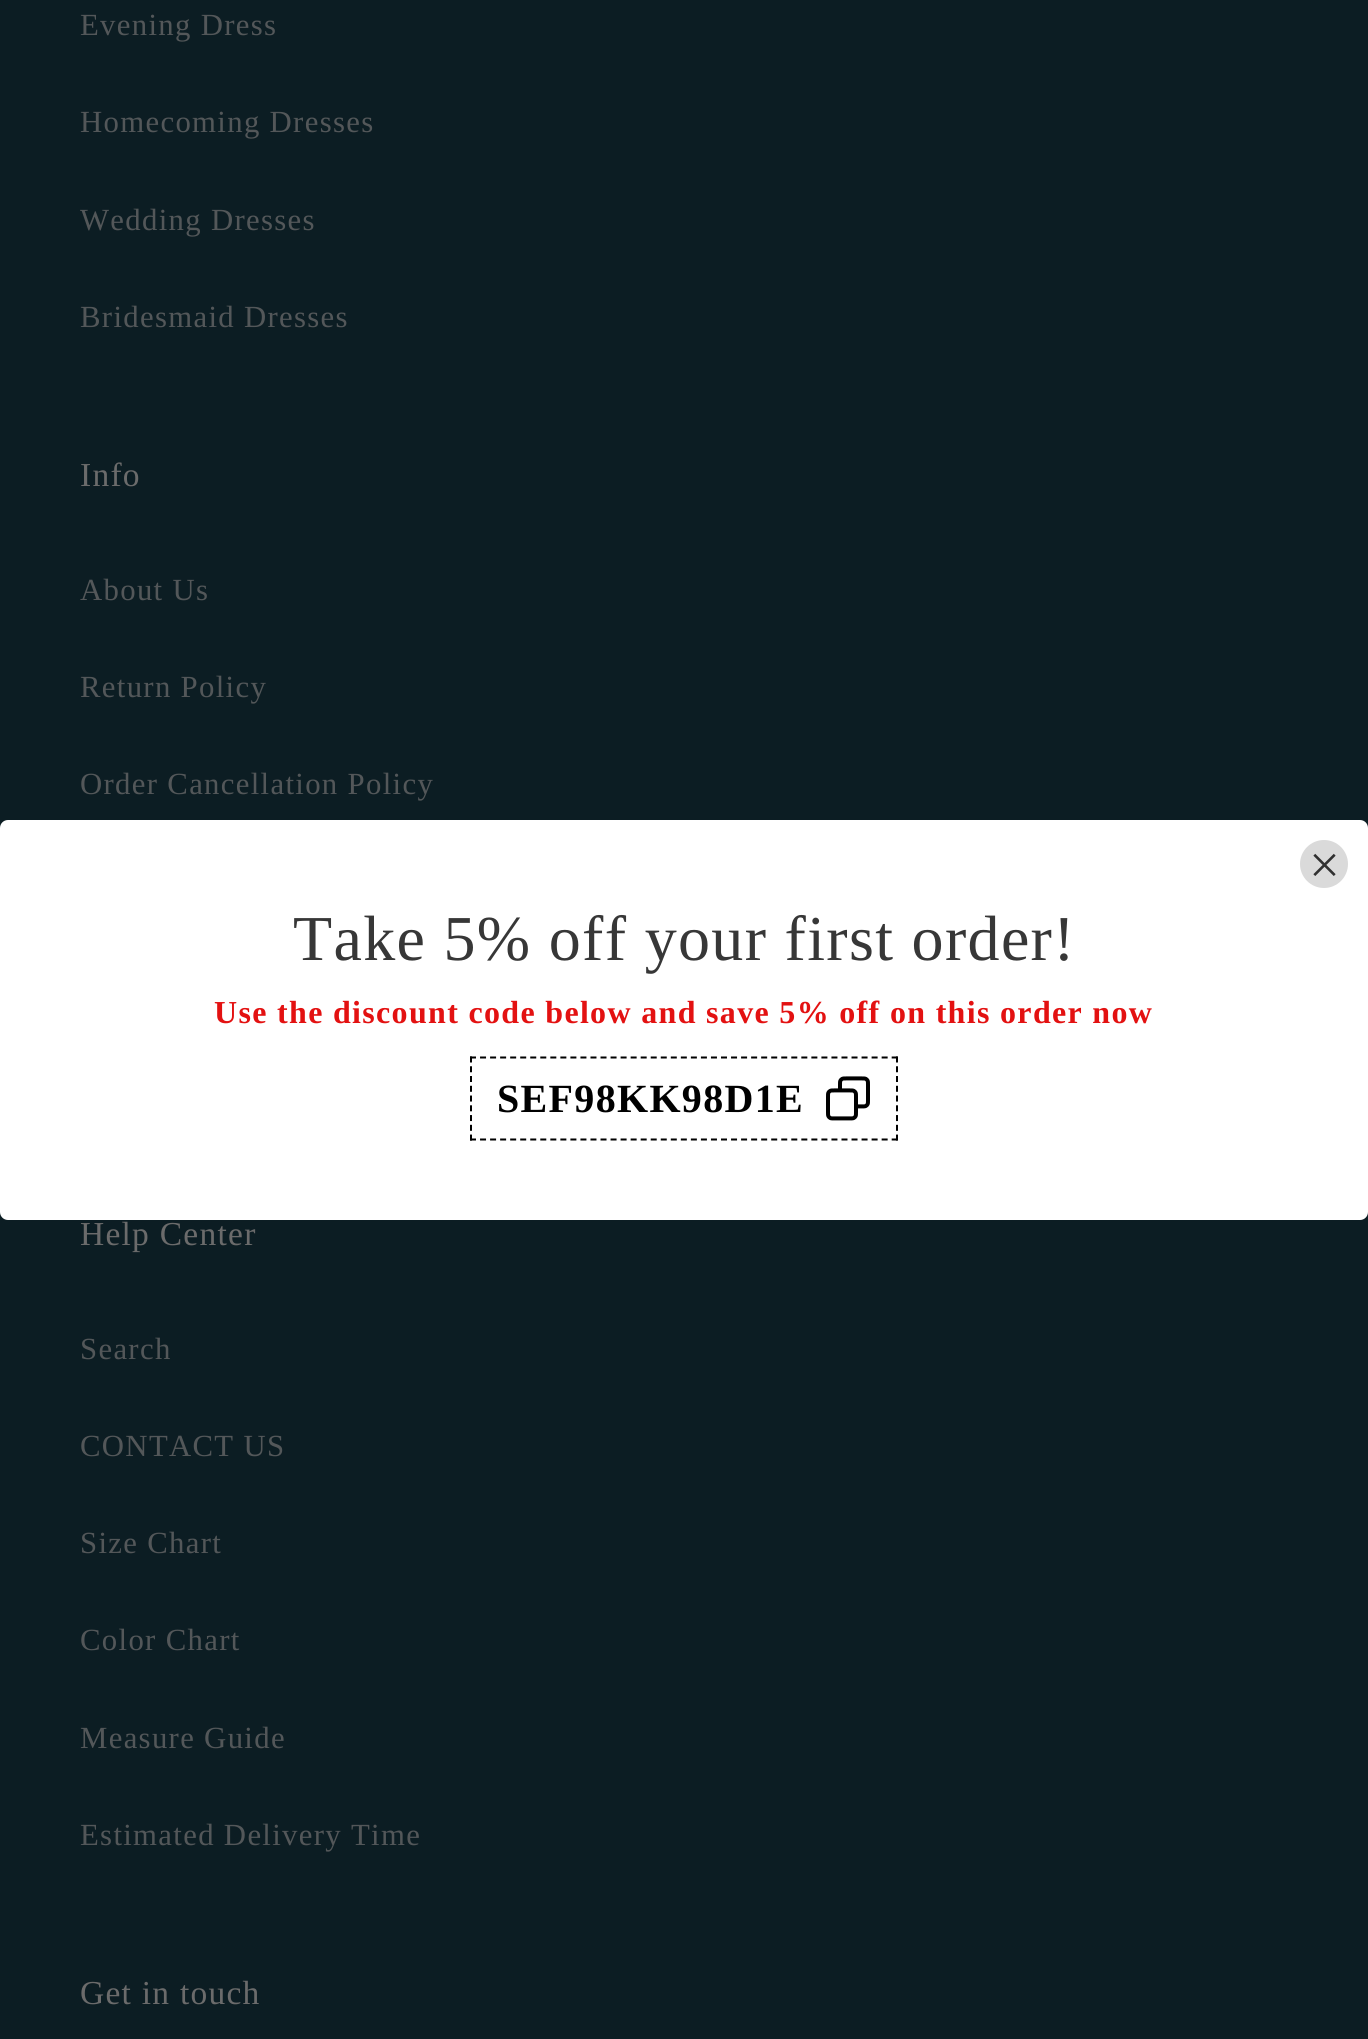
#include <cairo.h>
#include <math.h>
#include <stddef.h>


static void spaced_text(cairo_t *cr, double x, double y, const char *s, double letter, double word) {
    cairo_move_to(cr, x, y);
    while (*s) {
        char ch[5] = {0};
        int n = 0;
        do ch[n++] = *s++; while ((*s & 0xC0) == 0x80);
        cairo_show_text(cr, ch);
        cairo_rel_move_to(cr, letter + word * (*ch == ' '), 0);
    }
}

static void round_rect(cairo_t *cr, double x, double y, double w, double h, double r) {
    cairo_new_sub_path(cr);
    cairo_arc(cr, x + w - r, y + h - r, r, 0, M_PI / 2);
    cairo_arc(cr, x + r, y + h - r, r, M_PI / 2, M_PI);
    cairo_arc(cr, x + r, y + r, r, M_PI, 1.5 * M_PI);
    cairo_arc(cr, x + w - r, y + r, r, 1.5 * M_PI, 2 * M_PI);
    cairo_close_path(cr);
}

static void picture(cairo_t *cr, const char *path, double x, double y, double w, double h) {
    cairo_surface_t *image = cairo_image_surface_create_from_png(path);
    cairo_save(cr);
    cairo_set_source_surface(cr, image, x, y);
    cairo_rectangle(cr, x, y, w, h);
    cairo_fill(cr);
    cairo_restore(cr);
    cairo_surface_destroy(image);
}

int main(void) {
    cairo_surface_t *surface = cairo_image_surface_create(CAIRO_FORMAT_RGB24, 1368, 2039);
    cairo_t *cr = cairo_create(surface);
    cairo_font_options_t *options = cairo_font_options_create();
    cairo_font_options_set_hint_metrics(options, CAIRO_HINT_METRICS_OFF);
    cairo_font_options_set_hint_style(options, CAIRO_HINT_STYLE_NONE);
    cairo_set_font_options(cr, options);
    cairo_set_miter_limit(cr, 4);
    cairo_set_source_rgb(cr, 0.047, 0.114, 0.137);
    cairo_paint(cr);
    cairo_select_font_face(cr, "Liberation Serif", CAIRO_FONT_SLANT_NORMAL, CAIRO_FONT_WEIGHT_NORMAL);
    cairo_set_font_size(cr, 30.75);
    cairo_set_source_rgb(cr, 0.325, 0.341, 0.349);
    spaced_text(cr, 80, 35, "Evening Dress", 1.32, 0);
    spaced_text(cr, 80, 132, "Homecoming Dresses", 1.32, 0);
    spaced_text(cr, 80, 230, "Wedding Dresses", 1.32, 0);
    spaced_text(cr, 80, 327, "Bridesmaid Dresses", 1.32, 0);
    cairo_set_font_size(cr, 33.5);
    cairo_set_source_rgb(cr, 0.42, 0.42, 0.42);
    spaced_text(cr, 80, 486, "Info", 1.25, 0);
    cairo_set_font_size(cr, 30.75);
    cairo_set_source_rgb(cr, 0.325, 0.341, 0.349);
    spaced_text(cr, 80, 600, "About Us", 1.32, 0);
    spaced_text(cr, 80, 697, "Return Policy", 1.32, 0);
    spaced_text(cr, 80, 794, "Order Cancellation Policy", 1.32, 0);
    cairo_set_font_size(cr, 33.5);
    cairo_set_source_rgb(cr, 0.42, 0.42, 0.42);
    spaced_text(cr, 80, 1245, "Help Center", 1.25, 0);
    cairo_set_font_size(cr, 30.75);
    cairo_set_source_rgb(cr, 0.325, 0.341, 0.349);
    spaced_text(cr, 80, 1359, "Search", 1.32, 0);
    spaced_text(cr, 80, 1456, "CONTACT US", 1.32, 0);
    spaced_text(cr, 80, 1553, "Size Chart", 1.32, 0);
    spaced_text(cr, 80, 1650, "Color Chart", 1.32, 0);
    spaced_text(cr, 80, 1748, "Measure Guide", 1.32, 0);
    spaced_text(cr, 80, 1845, "Estimated Delivery Time", 1.32, 0);
    cairo_set_font_size(cr, 33.5);
    cairo_set_source_rgb(cr, 0.42, 0.42, 0.42);
    spaced_text(cr, 80, 2004, "Get in touch", 1.25, 0);
    cairo_set_source_rgb(cr, 1, 1, 1);
    round_rect(cr, 0, 820, 1368, 400, 8);
    cairo_fill(cr);
    cairo_set_source_rgb(cr, 0.855, 0.855, 0.855);
    cairo_arc(cr, 1324, 864, 24, 0, 2 * M_PI);
    cairo_fill(cr);
    picture(cr, "img1.png", 1313, 853, 23, 23);
    cairo_set_font_size(cr, 64);
    cairo_set_source_rgb(cr, 0.216, 0.216, 0.216);
    spaced_text(cr, 293, 960, "Take 5% off your first order!", 1.32, 0);
    cairo_select_font_face(cr, "Liberation Serif", CAIRO_FONT_SLANT_NORMAL, CAIRO_FONT_WEIGHT_BOLD);
    cairo_set_font_size(cr, 32);
    cairo_set_source_rgb(cr, 0.89, 0.067, 0.067);
    spaced_text(cr, 214, 1023, "Use the discount code below and save 5% off on this order now", 1.32, 0);
    cairo_new_path(cr);
    cairo_move_to(cr, 470, 1057.5);
    cairo_line_to(cr, 898, 1057.5);
    cairo_set_source_rgb(cr, 0, 0, 0);
    cairo_set_dash(cr, (double[]){6, 4.04}, 2, 0);
    cairo_stroke(cr);
    cairo_new_path(cr);
    cairo_move_to(cr, 897, 1056.5);
    cairo_line_to(cr, 897, 1140.5);
    cairo_set_dash(cr, (double[]){6, 3.76}, 2, 0);
    cairo_stroke(cr);
    cairo_new_path(cr);
    cairo_move_to(cr, 470, 1139.5);
    cairo_line_to(cr, 898, 1139.5);
    cairo_set_dash(cr, (double[]){6, 4.04}, 2, 0);
    cairo_stroke(cr);
    cairo_new_path(cr);
    cairo_move_to(cr, 471, 1056.5);
    cairo_line_to(cr, 471, 1140.5);
    cairo_set_dash(cr, (double[]){6, 3.76}, 2, 0);
    cairo_stroke(cr);
    cairo_set_font_size(cr, 40);
    spaced_text(cr, 497, 1112, "SEF98KK98D1E", 1.32, 0);
    picture(cr, "img2.png", 826, 1076, 44, 45);
    cairo_surface_write_to_png(surface, "page.png");
    cairo_font_options_destroy(options);
    cairo_destroy(cr);
    cairo_surface_destroy(surface);
    return 0;
}
